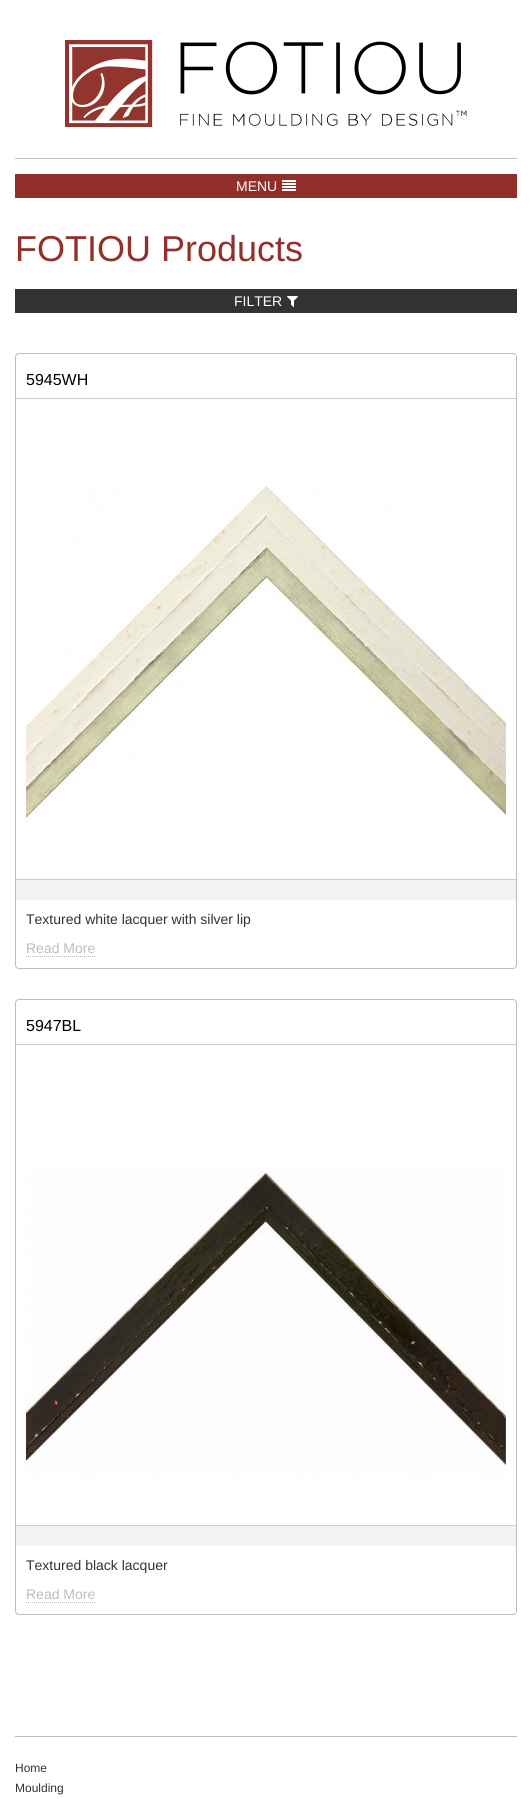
#include <cairo.h>
#include <math.h>
#include <stddef.h>


static void round_rect(cairo_t *cr, double x, double y, double w, double h, double r) {
    cairo_new_sub_path(cr);
    cairo_arc(cr, x + w - r, y + h - r, r, 0, M_PI / 2);
    cairo_arc(cr, x + r, y + h - r, r, M_PI / 2, M_PI);
    cairo_arc(cr, x + r, y + r, r, M_PI, 1.5 * M_PI);
    cairo_arc(cr, x + w - r, y + r, r, 1.5 * M_PI, 2 * M_PI);
    cairo_close_path(cr);
}

static void picture(cairo_t *cr, const char *path, double x, double y, double w, double h) {
    cairo_surface_t *image = cairo_image_surface_create_from_png(path);
    cairo_save(cr);
    cairo_set_source_surface(cr, image, x, y);
    cairo_rectangle(cr, x, y, w, h);
    cairo_fill(cr);
    cairo_restore(cr);
    cairo_surface_destroy(image);
}

int main(void) {
    cairo_surface_t *surface = cairo_image_surface_create(CAIRO_FORMAT_RGB24, 532, 1799);
    cairo_t *cr = cairo_create(surface);
    cairo_font_options_t *options = cairo_font_options_create();
    cairo_font_options_set_hint_metrics(options, CAIRO_HINT_METRICS_OFF);
    cairo_font_options_set_hint_style(options, CAIRO_HINT_STYLE_NONE);
    cairo_set_font_options(cr, options);
    cairo_set_miter_limit(cr, 4);
    cairo_set_source_rgb(cr, 1, 1, 1);
    cairo_paint(cr);
    picture(cr, "img1.png", 65, 40, 402, 87);
    cairo_set_source_rgb(cr, 0.741, 0.741, 0.741);
    cairo_rectangle(cr, 15, 158, 502, 1);
    cairo_fill(cr);
    cairo_set_source_rgb(cr, 0.573, 0.184, 0.165);
    cairo_rectangle(cr, 15, 174, 502, 24);
    cairo_fill(cr);
    cairo_select_font_face(cr, "Liberation Sans", CAIRO_FONT_SLANT_NORMAL, CAIRO_FONT_WEIGHT_NORMAL);
    cairo_set_font_size(cr, 14);
    cairo_set_source_rgb(cr, 1, 1, 1);
    cairo_move_to(cr, 236, 191);
    cairo_show_text(cr, "MENU");
    picture(cr, "img2.png", 282, 180, 14, 11);
    cairo_set_font_size(cr, 36);
    cairo_set_source_rgb(cr, 0.573, 0.184, 0.165);
    cairo_move_to(cr, 15, 261);
    cairo_show_text(cr, "FOTIOU Products");
    cairo_set_source_rgb(cr, 0.2, 0.2, 0.2);
    cairo_rectangle(cr, 15, 289, 502, 24);
    cairo_fill(cr);
    cairo_set_font_size(cr, 14);
    cairo_set_source_rgb(cr, 1, 1, 1);
    cairo_move_to(cr, 234, 306);
    cairo_show_text(cr, "FILTER");
    picture(cr, "img3.png", 287, 296, 11, 11);
    round_rect(cr, 15.5, 353.5, 501, 615, 3.5);
    cairo_set_source_rgb(cr, 0.741, 0.741, 0.741);
    cairo_set_line_width(cr, 1);
    cairo_stroke(cr);
    cairo_set_font_size(cr, 16);
    cairo_set_source_rgb(cr, 0, 0, 0);
    cairo_move_to(cr, 26, 385);
    cairo_show_text(cr, "5945WH");
    cairo_set_source_rgb(cr, 0.8, 0.8, 0.8);
    cairo_rectangle(cr, 16, 398, 500, 1);
    cairo_fill(cr);
    cairo_rectangle(cr, 16, 879, 500, 1);
    cairo_fill(cr);
    picture(cr, "img4.png", 26, 483, 480, 339);
    cairo_set_source_rgb(cr, 0.949, 0.949, 0.949);
    cairo_rectangle(cr, 16, 880, 500, 20);
    cairo_fill(cr);
    cairo_set_font_size(cr, 14);
    cairo_set_source_rgb(cr, 0.2, 0.2, 0.2);
    cairo_move_to(cr, 26, 924);
    cairo_show_text(cr, "Textured white lacquer with silver lip");
    cairo_set_source_rgb(cr, 0.741, 0.741, 0.741);
    cairo_move_to(cr, 26, 953);
    cairo_show_text(cr, "Read More");
    cairo_new_path(cr);
    cairo_move_to(cr, 26, 956.5);
    cairo_line_to(cr, 95, 956.5);
    cairo_set_dash(cr, (double[]){1, 1}, 2, 0);
    cairo_stroke(cr);
    round_rect(cr, 15.5, 999.5, 501, 615, 3.5);
    cairo_set_dash(cr, NULL, 0, 0);
    cairo_stroke(cr);
    cairo_set_font_size(cr, 16);
    cairo_set_source_rgb(cr, 0, 0, 0);
    cairo_move_to(cr, 26, 1031);
    cairo_show_text(cr, "5947BL");
    cairo_set_source_rgb(cr, 0.8, 0.8, 0.8);
    cairo_rectangle(cr, 16, 1044, 500, 1);
    cairo_fill(cr);
    cairo_rectangle(cr, 16, 1525, 500, 1);
    cairo_fill(cr);
    picture(cr, "img5.png", 26, 1167, 480, 310);
    cairo_set_source_rgb(cr, 0.949, 0.949, 0.949);
    cairo_rectangle(cr, 16, 1526, 500, 20);
    cairo_fill(cr);
    cairo_set_font_size(cr, 14);
    cairo_set_source_rgb(cr, 0.2, 0.2, 0.2);
    cairo_move_to(cr, 26, 1570);
    cairo_show_text(cr, "Textured black lacquer");
    cairo_set_source_rgb(cr, 0.741, 0.741, 0.741);
    cairo_move_to(cr, 26, 1599);
    cairo_show_text(cr, "Read More");
    cairo_new_path(cr);
    cairo_move_to(cr, 26, 1602.5);
    cairo_line_to(cr, 95, 1602.5);
    cairo_set_dash(cr, (double[]){1, 1}, 2, 0);
    cairo_stroke(cr);
    cairo_rectangle(cr, 15, 1736, 502, 1);
    cairo_fill(cr);
    cairo_set_font_size(cr, 12);
    cairo_set_source_rgb(cr, 0.2, 0.2, 0.2);
    cairo_move_to(cr, 15, 1772);
    cairo_show_text(cr, "Home");
    cairo_move_to(cr, 15, 1792);
    cairo_show_text(cr, "Moulding");
    cairo_surface_write_to_png(surface, "page.png");
    cairo_font_options_destroy(options);
    cairo_destroy(cr);
    cairo_surface_destroy(surface);
    return 0;
}
